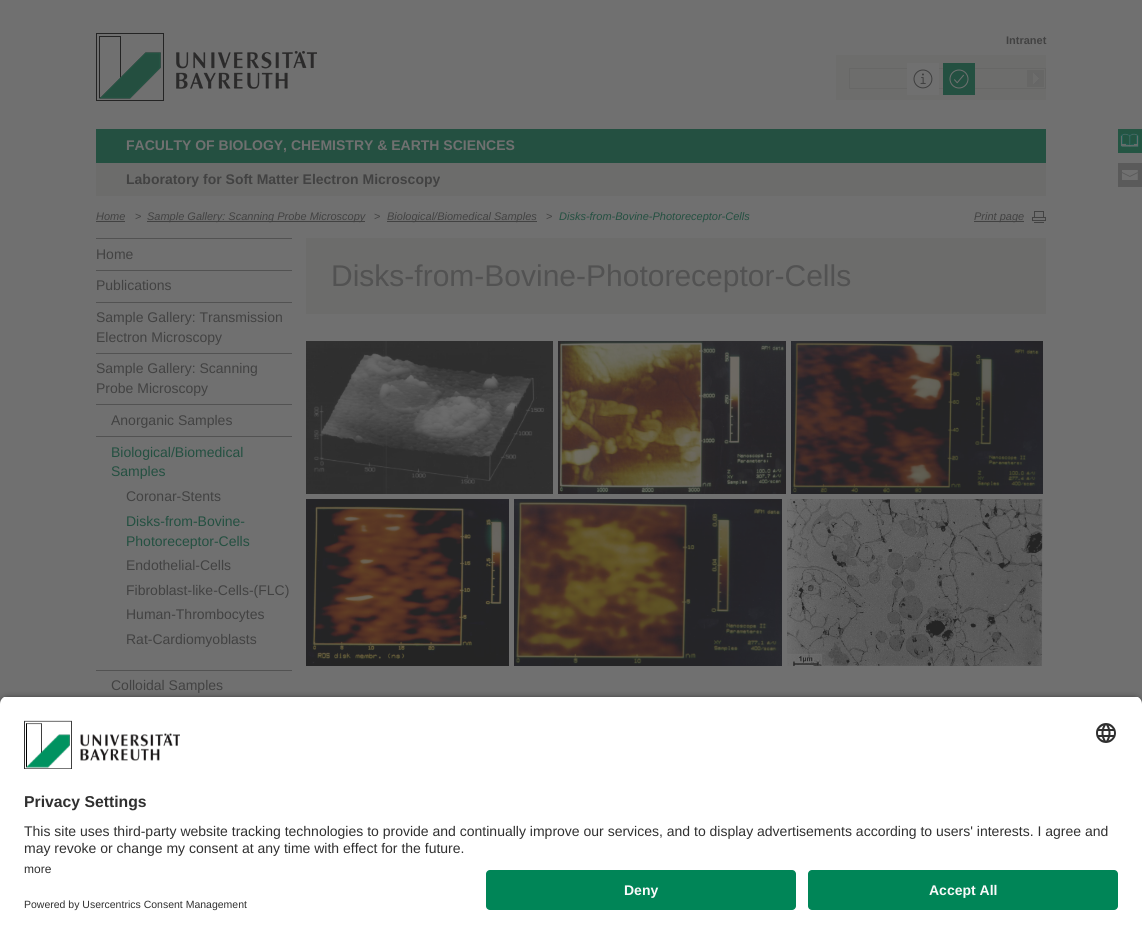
#include <cairo.h>
#include <math.h>
#include <stddef.h>


static void round_rect(cairo_t *cr, double x, double y, double w, double h, double r) {
    cairo_new_sub_path(cr);
    cairo_arc(cr, x + w - r, y + h - r, r, 0, M_PI / 2);
    cairo_arc(cr, x + r, y + h - r, r, M_PI / 2, M_PI);
    cairo_arc(cr, x + r, y + r, r, M_PI, 1.5 * M_PI);
    cairo_arc(cr, x + w - r, y + r, r, 1.5 * M_PI, 2 * M_PI);
    cairo_close_path(cr);
}

static void shadow(cairo_t *cr, double x, double y, double w, double h, double r, double blur, double alpha) {
    cairo_push_group_with_content(cr, CAIRO_CONTENT_ALPHA);
    cairo_set_operator(cr, CAIRO_OPERATOR_SOURCE);
    for (int i = 15; i >= -15 && fmin(w, h) + blur * i / 3 > 0; i -= 2) {
        double e = blur * i / 6;
        cairo_set_source_rgba(cr, 0, 0, 0, alpha * erfc((i - 1) / 8.5) / 2);
        round_rect(cr, x - e, y - e, w + 2 * e, h + 2 * e, fmax(0, fmin(r + e + blur * .6, fmin(w, h) / 2 + e)));
        cairo_fill(cr);
    }
    cairo_pattern_t *soft = cairo_pop_group(cr);
    cairo_mask(cr, soft);
    cairo_pattern_destroy(soft);
}

static void picture(cairo_t *cr, const char *path, double x, double y, double w, double h) {
    cairo_surface_t *image = cairo_image_surface_create_from_png(path);
    cairo_save(cr);
    cairo_set_source_surface(cr, image, x, y);
    cairo_rectangle(cr, x, y, w, h);
    cairo_fill(cr);
    cairo_restore(cr);
    cairo_surface_destroy(image);
}

int main(void) {
    cairo_surface_t *surface = cairo_image_surface_create(CAIRO_FORMAT_RGB24, 1142, 934);
    cairo_t *cr = cairo_create(surface);
    cairo_font_options_t *options = cairo_font_options_create();
    cairo_font_options_set_hint_metrics(options, CAIRO_HINT_METRICS_OFF);
    cairo_font_options_set_hint_style(options, CAIRO_HINT_STYLE_NONE);
    cairo_set_font_options(cr, options);
    cairo_set_miter_limit(cr, 4);
    cairo_set_source_rgb(cr, 0.439, 0.439, 0.439);
    cairo_paint(cr);
    cairo_set_source_rgb(cr, 0.427, 0.427, 0.424);
    cairo_rectangle(cr, 836, 55, 210, 45);
    cairo_fill(cr);
    picture(cr, "img1.png", 96, 33, 221, 68);
    cairo_select_font_face(cr, "Liberation Sans", CAIRO_FONT_SLANT_NORMAL, CAIRO_FONT_WEIGHT_BOLD);
    cairo_set_font_size(cr, 11);
    cairo_set_source_rgb(cr, 0.259, 0.259, 0.259);
    cairo_move_to(cr, 1006, 44);
    cairo_show_text(cr, "Intranet");
    cairo_rectangle(cr, 849.5, 68.5, 196, 20);
    cairo_set_source_rgb(cr, 0.404, 0.404, 0.4);
    cairo_set_line_width(cr, 1);
    cairo_stroke(cr);
    cairo_set_source_rgb(cr, 0.439, 0.439, 0.439);
    cairo_rectangle(cr, 907, 63, 32, 32);
    cairo_fill(cr);
    picture(cr, "img2.png", 913, 69, 20, 20);
    cairo_set_source_rgb(cr, 0.141, 0.314, 0.255);
    cairo_rectangle(cr, 943, 63, 32, 32);
    cairo_fill(cr);
    picture(cr, "img3.png", 949, 69, 20, 20);
    cairo_set_source_rgb(cr, 0.404, 0.404, 0.4);
    cairo_rectangle(cr, 1027, 70, 17, 17);
    cairo_fill(cr);
    picture(cr, "img4.png", 1033, 73, 6, 11);
    cairo_set_source_rgb(cr, 0.141, 0.314, 0.255);
    cairo_rectangle(cr, 96, 129, 950, 34);
    cairo_fill(cr);
    cairo_set_font_size(cr, 14);
    cairo_set_source_rgb(cr, 0.439, 0.439, 0.439);
    cairo_move_to(cr, 126, 150);
    cairo_show_text(cr, "FACULTY OF BIOLOGY, CHEMISTRY & EARTH SCIENCES");
    cairo_set_source_rgb(cr, 0.424, 0.424, 0.42);
    cairo_rectangle(cr, 96, 163, 950, 33);
    cairo_fill(cr);
    cairo_set_source_rgb(cr, 0.259, 0.259, 0.259);
    cairo_move_to(cr, 126, 184);
    cairo_show_text(cr, "Laboratory for Soft Matter Electron Microscopy");
    cairo_select_font_face(cr, "Liberation Sans", CAIRO_FONT_SLANT_ITALIC, CAIRO_FONT_WEIGHT_NORMAL);
    cairo_set_font_size(cr, 11);
    cairo_move_to(cr, 96, 220);
    cairo_show_text(cr, "Home");
    cairo_rectangle(cr, 96, 221, 29, 1);
    cairo_fill(cr);
    cairo_select_font_face(cr, "Liberation Sans", CAIRO_FONT_SLANT_NORMAL, CAIRO_FONT_WEIGHT_NORMAL);
    cairo_move_to(cr, 135, 220);
    cairo_show_text(cr, ">");
    cairo_rectangle(cr, 147, 221, 218, 1);
    cairo_fill(cr);
    cairo_select_font_face(cr, "Liberation Sans", CAIRO_FONT_SLANT_ITALIC, CAIRO_FONT_WEIGHT_NORMAL);
    cairo_move_to(cr, 147, 220);
    cairo_show_text(cr, "Sample Gallery: Scanning Probe Microscopy");
    cairo_select_font_face(cr, "Liberation Sans", CAIRO_FONT_SLANT_NORMAL, CAIRO_FONT_WEIGHT_NORMAL);
    cairo_move_to(cr, 374, 220);
    cairo_show_text(cr, ">");
    cairo_rectangle(cr, 387, 221, 150, 1);
    cairo_fill(cr);
    cairo_select_font_face(cr, "Liberation Sans", CAIRO_FONT_SLANT_ITALIC, CAIRO_FONT_WEIGHT_NORMAL);
    cairo_move_to(cr, 387, 220);
    cairo_show_text(cr, "Biological/Biomedical Samples");
    cairo_select_font_face(cr, "Liberation Sans", CAIRO_FONT_SLANT_NORMAL, CAIRO_FONT_WEIGHT_NORMAL);
    cairo_move_to(cr, 546, 220);
    cairo_show_text(cr, ">");
    cairo_select_font_face(cr, "Liberation Sans", CAIRO_FONT_SLANT_ITALIC, CAIRO_FONT_WEIGHT_NORMAL);
    cairo_set_source_rgb(cr, 0.141, 0.314, 0.255);
    cairo_move_to(cr, 559, 220);
    cairo_show_text(cr, "Disks-from-Bovine-Photoreceptor-Cells");
    picture(cr, "img5.png", 1032, 211, 14, 12);
    cairo_set_source_rgb(cr, 0.259, 0.259, 0.259);
    cairo_rectangle(cr, 974, 221, 50, 1);
    cairo_fill(cr);
    cairo_move_to(cr, 974, 220);
    cairo_show_text(cr, "Print page");
    cairo_set_source_rgb(cr, 0.141, 0.333, 0.263);
    cairo_rectangle(cr, 1118, 129, 24, 24);
    cairo_fill(cr);
    picture(cr, "img6.png", 1120, 133, 19, 14);
    cairo_set_source_rgb(cr, 0.353, 0.353, 0.353);
    cairo_rectangle(cr, 1118, 163, 24, 24);
    cairo_fill(cr);
    picture(cr, "img7.png", 1122, 170, 16, 10);
    cairo_set_source_rgb(cr, 0.322, 0.322, 0.322);
    cairo_rectangle(cr, 96, 238, 196, 1);
    cairo_fill(cr);
    cairo_select_font_face(cr, "Liberation Sans", CAIRO_FONT_SLANT_NORMAL, CAIRO_FONT_WEIGHT_NORMAL);
    cairo_set_font_size(cr, 14);
    cairo_set_source_rgb(cr, 0.259, 0.259, 0.259);
    cairo_move_to(cr, 96, 259);
    cairo_show_text(cr, "Home");
    cairo_set_source_rgb(cr, 0.322, 0.322, 0.322);
    cairo_rectangle(cr, 96, 270, 196, 1);
    cairo_fill(cr);
    cairo_set_source_rgb(cr, 0.259, 0.259, 0.259);
    cairo_move_to(cr, 96, 290);
    cairo_show_text(cr, "Publications");
    cairo_set_source_rgb(cr, 0.322, 0.322, 0.322);
    cairo_rectangle(cr, 96, 302, 196, 1);
    cairo_fill(cr);
    cairo_set_source_rgb(cr, 0.259, 0.259, 0.259);
    cairo_move_to(cr, 96, 322);
    cairo_show_text(cr, "Sample Gallery: Transmission");
    cairo_move_to(cr, 96, 342);
    cairo_show_text(cr, "Electron Microscopy");
    cairo_set_source_rgb(cr, 0.322, 0.322, 0.322);
    cairo_rectangle(cr, 96, 353, 196, 1);
    cairo_fill(cr);
    cairo_set_source_rgb(cr, 0.259, 0.259, 0.259);
    cairo_move_to(cr, 96, 373);
    cairo_show_text(cr, "Sample Gallery: Scanning");
    cairo_move_to(cr, 96, 393);
    cairo_show_text(cr, "Probe Microscopy");
    cairo_set_source_rgb(cr, 0.322, 0.322, 0.322);
    cairo_rectangle(cr, 96, 404, 196, 1);
    cairo_fill(cr);
    cairo_set_source_rgb(cr, 0.259, 0.259, 0.259);
    cairo_move_to(cr, 111, 425);
    cairo_show_text(cr, "Anorganic Samples");
    cairo_set_source_rgb(cr, 0.322, 0.322, 0.322);
    cairo_rectangle(cr, 96, 436, 196, 1);
    cairo_fill(cr);
    cairo_set_source_rgb(cr, 0.141, 0.314, 0.255);
    cairo_move_to(cr, 111, 457);
    cairo_show_text(cr, "Biological/Biomedical");
    cairo_move_to(cr, 111, 476);
    cairo_show_text(cr, "Samples");
    cairo_set_source_rgb(cr, 0.259, 0.259, 0.259);
    cairo_move_to(cr, 126, 501);
    cairo_show_text(cr, "Coronar-Stents");
    cairo_set_source_rgb(cr, 0.141, 0.314, 0.255);
    cairo_move_to(cr, 126, 526);
    cairo_show_text(cr, "Disks-from-Bovine-");
    cairo_move_to(cr, 126, 546);
    cairo_show_text(cr, "Photoreceptor-Cells");
    cairo_set_source_rgb(cr, 0.259, 0.259, 0.259);
    cairo_move_to(cr, 126, 570);
    cairo_show_text(cr, "Endothelial-Cells");
    cairo_move_to(cr, 126, 595);
    cairo_show_text(cr, "Fibroblast-like-Cells-(FLC)");
    cairo_move_to(cr, 126, 619);
    cairo_show_text(cr, "Human-Thrombocytes");
    cairo_move_to(cr, 126, 644);
    cairo_show_text(cr, "Rat-Cardiomyoblasts");
    cairo_set_source_rgb(cr, 0.322, 0.322, 0.322);
    cairo_rectangle(cr, 96, 670, 196, 1);
    cairo_fill(cr);
    cairo_set_source_rgb(cr, 0.259, 0.259, 0.259);
    cairo_move_to(cr, 111, 690);
    cairo_show_text(cr, "Colloidal Samples");
    cairo_set_source_rgb(cr, 0.424, 0.424, 0.42);
    cairo_rectangle(cr, 306, 238, 740, 76);
    cairo_fill(cr);
    cairo_set_font_size(cr, 30);
    cairo_set_source_rgb(cr, 0.322, 0.322, 0.322);
    cairo_move_to(cr, 331, 286);
    cairo_show_text(cr, "Disks-from-Bovine-Photoreceptor-Cells");
    picture(cr, "img8.png", 306, 341, 247, 153);
    picture(cr, "img9.png", 558, 341, 228, 153);
    picture(cr, "img10.png", 791, 341, 252, 153);
    picture(cr, "img11.png", 306, 499, 203, 167);
    picture(cr, "img12.png", 514, 499, 268, 167);
    picture(cr, "img13.png", 787, 499, 256, 167);
    cairo_set_source_rgb(cr, 0, 0, 0);
    shadow(cr, 0, 699, 1142, 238, 8, 3.5, 0.8);
    cairo_save(cr);
    cairo_new_path(cr);
    cairo_move_to(cr, 8, 696);
    cairo_line_to(cr, 1134, 696);
    cairo_curve_to(cr, 1138.5, 696, 1142, 699.5, 1142, 704);
    cairo_line_to(cr, 1142, 862);
    cairo_line_to(cr, 0, 862);
    cairo_line_to(cr, 0, 704);
    cairo_curve_to(cr, 0, 699.5, 3.5, 696, 8, 696);
    cairo_close_path(cr);
    cairo_clip(cr);
    cairo_set_source_rgb(cr, 1, 1, 1);
    cairo_rectangle(cr, 0, 697, 1142, 165);
    cairo_fill(cr);
    cairo_restore(cr);
    picture(cr, "img14.png", 24, 720, 156, 49);
    picture(cr, "img15.png", 1096, 723, 20, 20);
    cairo_select_font_face(cr, "Liberation Sans", CAIRO_FONT_SLANT_NORMAL, CAIRO_FONT_WEIGHT_BOLD);
    cairo_set_font_size(cr, 15.75);
    cairo_set_source_rgb(cr, 0.188, 0.188, 0.188);
    cairo_move_to(cr, 24, 807);
    cairo_show_text(cr, "Privacy Settings");
    cairo_select_font_face(cr, "Liberation Sans", CAIRO_FONT_SLANT_NORMAL, CAIRO_FONT_WEIGHT_NORMAL);
    cairo_set_font_size(cr, 14);
    cairo_move_to(cr, 24, 836);
    cairo_show_text(cr, "This site uses third-party website tracking technologies to provide and continually improve our services, and to display advertisements according to users' interests. I agree and");
    cairo_move_to(cr, 24, 853);
    cairo_show_text(cr, "may revoke or change my consent at any time with effect for the future.");
    cairo_set_source_rgb(cr, 1, 1, 1);
    cairo_rectangle(cr, 0, 862, 1142, 72);
    cairo_fill(cr);
    cairo_set_font_size(cr, 12);
    cairo_set_source_rgb(cr, 0.188, 0.188, 0.188);
    cairo_move_to(cr, 24, 873);
    cairo_show_text(cr, "more");
    cairo_set_font_size(cr, 10.5);
    cairo_move_to(cr, 24, 908);
    cairo_show_text(cr, "Powered by Usercentrics Consent Management");
    cairo_set_source_rgb(cr, 0, 0.522, 0.341);
    round_rect(cr, 486, 870, 310, 40, 4);
    cairo_fill(cr);
    cairo_select_font_face(cr, "Liberation Sans", CAIRO_FONT_SLANT_NORMAL, CAIRO_FONT_WEIGHT_BOLD);
    cairo_set_font_size(cr, 14);
    cairo_set_source_rgb(cr, 0.98, 0.98, 0.98);
    cairo_move_to(cr, 624, 895);
    cairo_show_text(cr, "Deny");
    cairo_set_source_rgb(cr, 0, 0.522, 0.341);
    round_rect(cr, 808, 870, 310, 40, 4);
    cairo_fill(cr);
    cairo_set_source_rgb(cr, 0.98, 0.98, 0.98);
    cairo_move_to(cr, 929, 895);
    cairo_show_text(cr, "Accept All");
    cairo_surface_write_to_png(surface, "page.png");
    cairo_font_options_destroy(options);
    cairo_destroy(cr);
    cairo_surface_destroy(surface);
    return 0;
}
